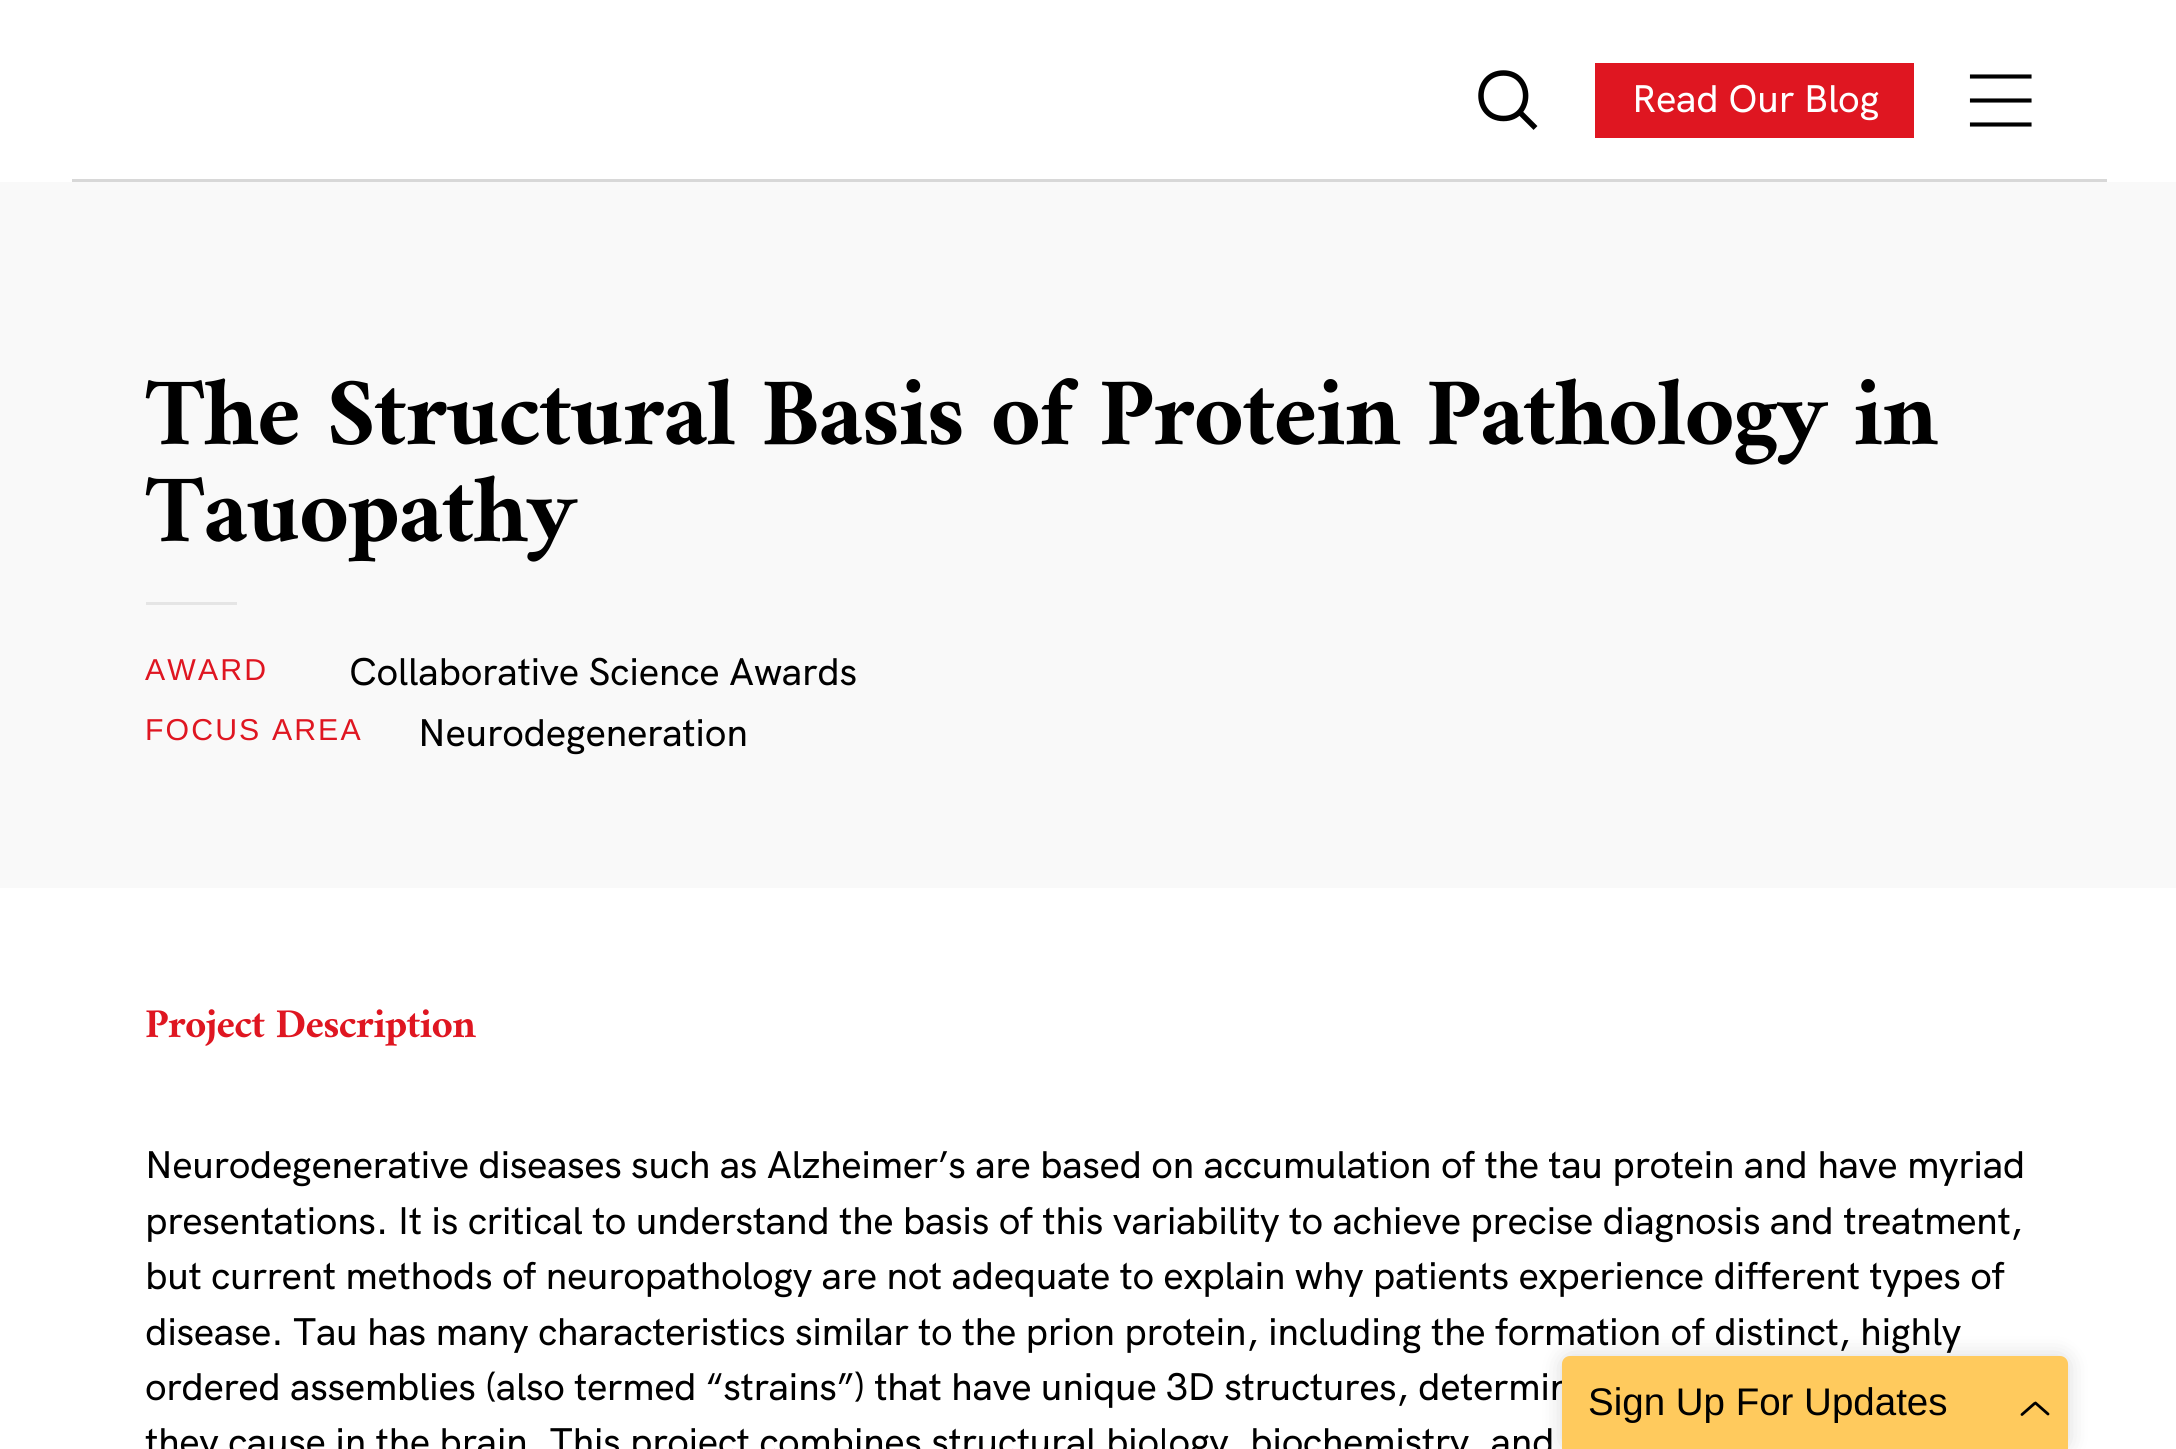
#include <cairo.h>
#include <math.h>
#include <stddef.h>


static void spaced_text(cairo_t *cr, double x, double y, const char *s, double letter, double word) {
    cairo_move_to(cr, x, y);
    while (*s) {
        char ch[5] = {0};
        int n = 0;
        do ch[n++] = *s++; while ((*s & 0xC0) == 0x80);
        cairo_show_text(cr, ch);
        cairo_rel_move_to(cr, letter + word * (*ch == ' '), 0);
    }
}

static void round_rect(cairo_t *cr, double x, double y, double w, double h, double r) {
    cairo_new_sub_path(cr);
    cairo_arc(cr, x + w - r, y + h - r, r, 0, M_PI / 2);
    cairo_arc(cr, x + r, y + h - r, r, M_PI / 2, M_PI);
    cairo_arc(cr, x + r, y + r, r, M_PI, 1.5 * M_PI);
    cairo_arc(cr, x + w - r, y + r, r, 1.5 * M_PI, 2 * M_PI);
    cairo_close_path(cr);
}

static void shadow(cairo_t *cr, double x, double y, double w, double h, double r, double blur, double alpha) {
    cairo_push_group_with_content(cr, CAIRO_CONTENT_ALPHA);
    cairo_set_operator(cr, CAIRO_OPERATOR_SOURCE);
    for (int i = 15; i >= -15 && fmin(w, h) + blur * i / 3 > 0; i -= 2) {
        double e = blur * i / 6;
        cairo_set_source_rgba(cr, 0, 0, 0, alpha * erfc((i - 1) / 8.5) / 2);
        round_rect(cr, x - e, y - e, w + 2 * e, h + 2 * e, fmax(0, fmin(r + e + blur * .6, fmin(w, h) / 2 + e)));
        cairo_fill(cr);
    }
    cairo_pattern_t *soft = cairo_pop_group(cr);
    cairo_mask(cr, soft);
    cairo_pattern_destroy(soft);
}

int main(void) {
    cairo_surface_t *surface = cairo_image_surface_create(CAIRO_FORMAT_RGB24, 2176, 1449);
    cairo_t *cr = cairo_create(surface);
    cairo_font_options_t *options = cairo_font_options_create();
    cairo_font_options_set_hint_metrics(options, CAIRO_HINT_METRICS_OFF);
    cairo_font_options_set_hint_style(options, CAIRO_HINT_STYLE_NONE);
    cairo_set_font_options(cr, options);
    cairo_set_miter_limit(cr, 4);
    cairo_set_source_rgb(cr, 1, 1, 1);
    cairo_paint(cr);
    cairo_new_path(cr);
    cairo_move_to(cr, 1519.5, 112);
    cairo_line_to(cr, 1535.5, 128);
    cairo_move_to(cr, 1503.5, 118.5);
    cairo_curve_to(cr, 1533, 118.5, 1533, 73, 1503.5, 73);
    cairo_curve_to(cr, 1473.5, 73, 1473.5, 118.5, 1503.5, 118.5);
    cairo_close_path(cr);
    cairo_set_source_rgb(cr, 0, 0, 0);
    cairo_set_line_width(cr, 5.5);
    cairo_stroke(cr);
    cairo_set_source_rgb(cr, 0.875, 0.086, 0.129);
    cairo_rectangle(cr, 1595, 63, 319, 75);
    cairo_fill(cr);
    cairo_select_font_face(cr, "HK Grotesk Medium", CAIRO_FONT_SLANT_NORMAL, CAIRO_FONT_WEIGHT_NORMAL);
    cairo_set_font_size(cr, 38.5);
    cairo_set_source_rgb(cr, 1, 1, 1);
    spaced_text(cr, 1632, 112, "Read Our Blog", -0.3, 0);
    cairo_new_path(cr);
    cairo_move_to(cr, 2029.5, 76.5);
    cairo_line_to(cr, 1972, 76.5);
    cairo_move_to(cr, 2029.5, 100.5);
    cairo_line_to(cr, 1972, 100.5);
    cairo_move_to(cr, 2029.5, 124.5);
    cairo_line_to(cr, 1972, 124.5);
    cairo_set_source_rgb(cr, 0, 0, 0);
    cairo_set_line_width(cr, 4.1);
    cairo_set_line_cap(cr, CAIRO_LINE_CAP_SQUARE);
    cairo_stroke(cr);
    cairo_set_source_rgb(cr, 0.847, 0.847, 0.847);
    cairo_rectangle(cr, 72, 179, 2035, 3);
    cairo_fill(cr);
    cairo_set_source_rgb(cr, 0.973, 0.973, 0.973);
    cairo_rectangle(cr, 0, 182, 2176, 706);
    cairo_fill(cr);
    cairo_select_font_face(cr, "Amiri", CAIRO_FONT_SLANT_NORMAL, CAIRO_FONT_WEIGHT_BOLD);
    cairo_set_font_size(cr, 96.75);
    cairo_set_source_rgb(cr, 0, 0, 0);
    spaced_text(cr, 145, 444, "The Structural Basis of Protein Pathology in", -1.35, 0);
    spaced_text(cr, 145, 541, "Tauopathy", -1.35, 0);
    cairo_set_source_rgb(cr, 0.898, 0.898, 0.898);
    cairo_rectangle(cr, 146, 602, 91, 3);
    cairo_fill(cr);
    cairo_select_font_face(cr, "Liberation Sans", CAIRO_FONT_SLANT_NORMAL, CAIRO_FONT_WEIGHT_NORMAL);
    cairo_set_font_size(cr, 30.25);
    cairo_set_source_rgb(cr, 0.875, 0.086, 0.129);
    spaced_text(cr, 145, 680, "AWARD", 2.1, 0);
    cairo_select_font_face(cr, "HK Grotesk Medium", CAIRO_FONT_SLANT_NORMAL, CAIRO_FONT_WEIGHT_NORMAL);
    cairo_set_font_size(cr, 38.5);
    cairo_set_source_rgb(cr, 0, 0, 0);
    spaced_text(cr, 349, 685, "Collaborative Science Awards", -0.3, 0);
    cairo_select_font_face(cr, "Liberation Sans", CAIRO_FONT_SLANT_NORMAL, CAIRO_FONT_WEIGHT_NORMAL);
    cairo_set_font_size(cr, 30.25);
    cairo_set_source_rgb(cr, 0.875, 0.086, 0.129);
    spaced_text(cr, 145, 740, "FOCUS AREA", 2.1, 0);
    cairo_select_font_face(cr, "HK Grotesk Medium", CAIRO_FONT_SLANT_NORMAL, CAIRO_FONT_WEIGHT_NORMAL);
    cairo_set_font_size(cr, 38.5);
    cairo_set_source_rgb(cr, 0, 0, 0);
    spaced_text(cr, 418, 746, "Neurodegeneration", -0.3, 0);
    cairo_select_font_face(cr, "Amiri", CAIRO_FONT_SLANT_NORMAL, CAIRO_FONT_WEIGHT_BOLD);
    cairo_set_font_size(cr, 41.25);
    cairo_set_source_rgb(cr, 0.875, 0.086, 0.129);
    spaced_text(cr, 145, 1037, "Project Description", -0.8, 0);
    cairo_select_font_face(cr, "HK Grotesk Medium", CAIRO_FONT_SLANT_NORMAL, CAIRO_FONT_WEIGHT_NORMAL);
    cairo_set_font_size(cr, 38.5);
    cairo_set_source_rgb(cr, 0, 0, 0);
    spaced_text(cr, 145, 1178, "Neurodegenerative diseases such as Alzheimer’s are based on accumulation of the tau protein and have myriad", -0.43, 0);
    spaced_text(cr, 145, 1234, "presentations. It is critical to understand the basis of this variability to achieve precise diagnosis and treatment,", -0.43, 0);
    spaced_text(cr, 145, 1289, "but current methods of neuropathology are not adequate to explain why patients experience different types of", -0.43, 0);
    spaced_text(cr, 145, 1345, "disease. Tau has many characteristics similar to the prion protein, including the formation of distinct, highly", -0.43, 0);
    spaced_text(cr, 145, 1400, "ordered assemblies (also termed “strains”) that have unique 3D structures, determin", -0.43, 0);
    spaced_text(cr, 145, 1455, "they cause in the brain. This project combines structural biology, biochemistry, and", -0.43, 0);
    cairo_set_source_rgb(cr, 0, 0, 0);
    shadow(cr, 1562, 1356, 506, 93, 8, 11, 0.15);
    cairo_set_source_rgb(cr, 1, 0.792, 0.365);
    cairo_new_path(cr);
    cairo_move_to(cr, 1570, 1356);
    cairo_line_to(cr, 2060, 1356);
    cairo_curve_to(cr, 2064.5, 1356, 2068, 1359.5, 2068, 1364);
    cairo_line_to(cr, 2068, 1449);
    cairo_line_to(cr, 1562, 1449);
    cairo_line_to(cr, 1562, 1364);
    cairo_curve_to(cr, 1562, 1359.5, 1565.5, 1356, 1570, 1356);
    cairo_close_path(cr);
    cairo_fill(cr);
    cairo_select_font_face(cr, "Liberation Sans", CAIRO_FONT_SLANT_NORMAL, CAIRO_FONT_WEIGHT_NORMAL);
    cairo_set_source_rgb(cr, 0, 0, 0);
    cairo_move_to(cr, 1588, 1415);
    cairo_show_text(cr, "Sign Up For Updates");
    cairo_new_path(cr);
    cairo_move_to(cr, 2048, 1414);
    cairo_line_to(cr, 2035.5, 1403);
    cairo_move_to(cr, 2022, 1414.5);
    cairo_line_to(cr, 2034.5, 1403.5);
    cairo_set_line_width(cr, 2.8);
    cairo_set_line_cap(cr, CAIRO_LINE_CAP_ROUND);
    cairo_stroke(cr);
    cairo_surface_write_to_png(surface, "page.png");
    cairo_font_options_destroy(options);
    cairo_destroy(cr);
    cairo_surface_destroy(surface);
    return 0;
}
